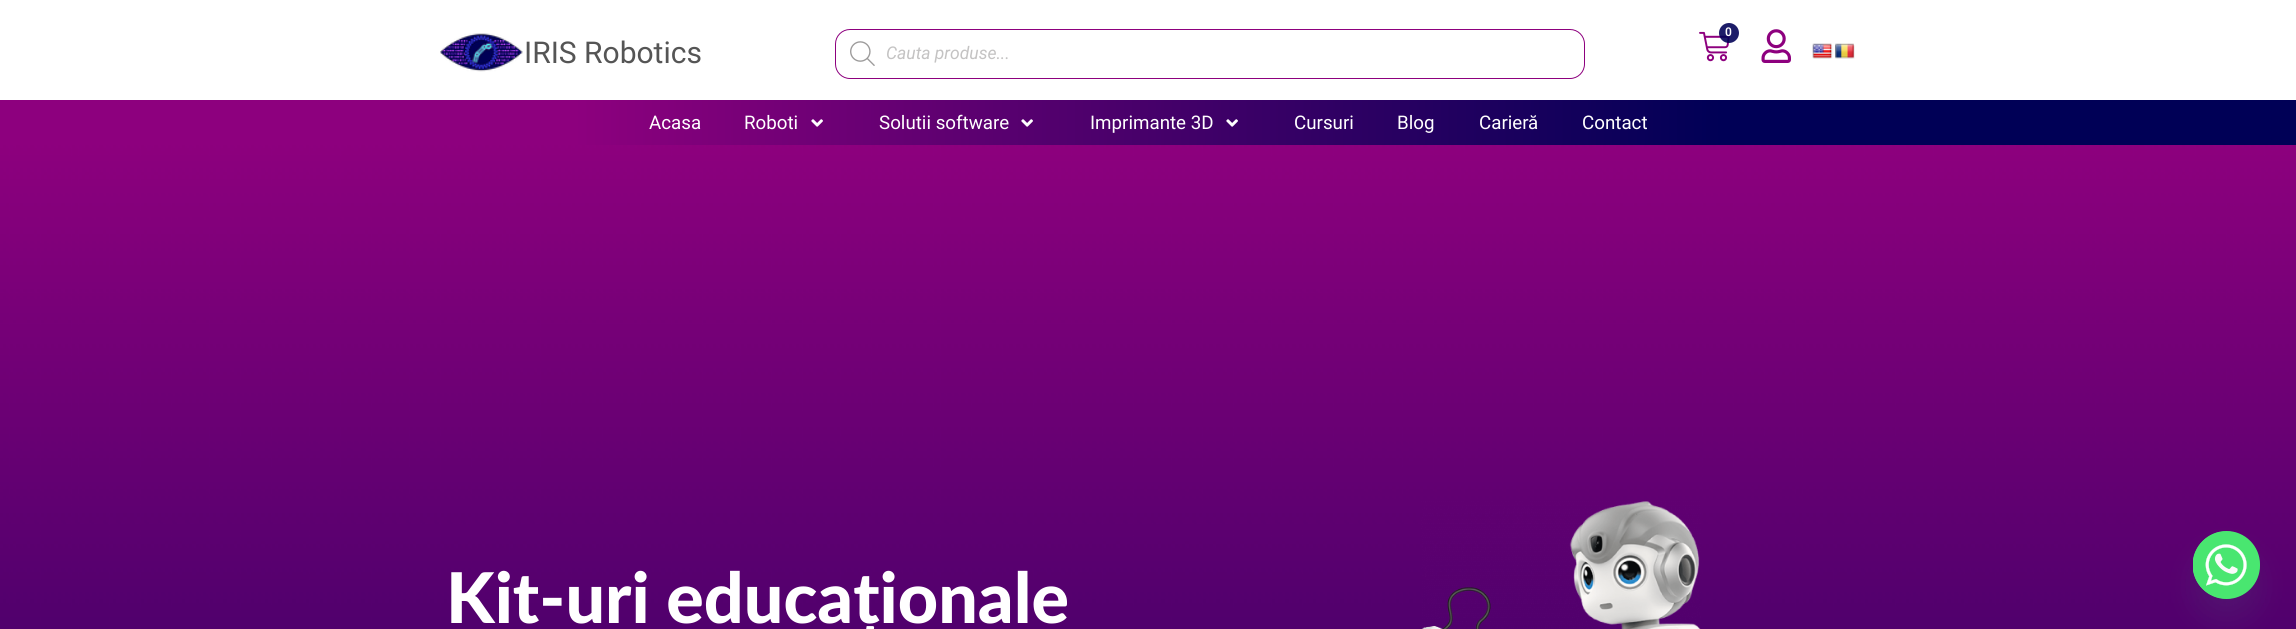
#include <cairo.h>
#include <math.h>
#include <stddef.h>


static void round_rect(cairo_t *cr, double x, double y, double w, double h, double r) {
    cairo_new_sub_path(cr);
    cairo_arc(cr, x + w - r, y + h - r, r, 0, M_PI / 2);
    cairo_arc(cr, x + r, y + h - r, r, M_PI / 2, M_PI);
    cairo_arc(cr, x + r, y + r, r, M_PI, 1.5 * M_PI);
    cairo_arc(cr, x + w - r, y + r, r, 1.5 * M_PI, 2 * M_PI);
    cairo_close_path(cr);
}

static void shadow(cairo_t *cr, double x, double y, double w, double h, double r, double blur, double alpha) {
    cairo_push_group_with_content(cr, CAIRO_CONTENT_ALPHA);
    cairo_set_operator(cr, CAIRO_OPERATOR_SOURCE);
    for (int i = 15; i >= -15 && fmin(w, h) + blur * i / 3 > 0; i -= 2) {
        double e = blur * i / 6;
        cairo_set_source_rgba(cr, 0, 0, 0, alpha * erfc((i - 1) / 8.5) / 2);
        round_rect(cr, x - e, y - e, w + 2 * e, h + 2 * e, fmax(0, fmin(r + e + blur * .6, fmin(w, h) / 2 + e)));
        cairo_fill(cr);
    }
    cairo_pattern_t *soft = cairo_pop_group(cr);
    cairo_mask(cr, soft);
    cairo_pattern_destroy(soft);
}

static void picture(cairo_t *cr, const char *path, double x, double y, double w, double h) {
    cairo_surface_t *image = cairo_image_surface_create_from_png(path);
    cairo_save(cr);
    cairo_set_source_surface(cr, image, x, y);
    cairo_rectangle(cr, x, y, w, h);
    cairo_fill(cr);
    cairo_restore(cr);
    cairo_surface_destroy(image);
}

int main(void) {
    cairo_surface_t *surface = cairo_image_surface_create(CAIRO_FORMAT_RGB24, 2296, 629);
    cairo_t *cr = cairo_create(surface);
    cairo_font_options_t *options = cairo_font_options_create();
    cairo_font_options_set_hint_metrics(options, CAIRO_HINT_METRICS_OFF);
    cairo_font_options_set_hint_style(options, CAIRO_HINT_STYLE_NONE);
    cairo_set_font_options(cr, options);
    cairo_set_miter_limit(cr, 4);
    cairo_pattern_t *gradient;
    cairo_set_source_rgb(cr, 1, 1, 1);
    cairo_paint(cr);
    picture(cr, "img1.png", 1699, 31, 31, 31);
    cairo_set_source_rgba(cr, 0, 0, 0.337, 0.89);
    cairo_arc(cr, 1729, 33, 10, 0, 2 * M_PI);
    cairo_fill(cr);
    cairo_select_font_face(cr, "Roboto SemiBold", CAIRO_FONT_SLANT_NORMAL, CAIRO_FONT_WEIGHT_NORMAL);
    cairo_set_font_size(cr, 12);
    cairo_set_source_rgb(cr, 1, 1, 1);
    cairo_move_to(cr, 1725, 36);
    cairo_show_text(cr, "0");
    picture(cr, "img2.png", 1761, 29, 30, 34);
    picture(cr, "img3.png", 1812, 43, 21, 16);
    picture(cr, "img4.png", 1835, 43, 20, 16);
    picture(cr, "img5.png", 440, 33, 83, 39);
    cairo_select_font_face(cr, "Roboto", CAIRO_FONT_SLANT_NORMAL, CAIRO_FONT_WEIGHT_NORMAL);
    cairo_set_font_size(cr, 30);
    cairo_set_source_rgb(cr, 0.333, 0.333, 0.333);
    cairo_move_to(cr, 524, 63);
    cairo_show_text(cr, "IRIS Robotics");
    round_rect(cr, 835.5, 29.5, 749, 49, 14.5);
    cairo_set_source_rgb(cr, 0.553, 0, 0.494);
    cairo_set_line_width(cr, 1);
    cairo_stroke(cr);
    picture(cr, "img6.png", 850, 41, 25, 25);
    cairo_select_font_face(cr, "Roboto", CAIRO_FONT_SLANT_ITALIC, CAIRO_FONT_WEIGHT_NORMAL);
    cairo_set_font_size(cr, 17.5);
    cairo_set_source_rgb(cr, 0.769, 0.765, 0.765);
    cairo_move_to(cr, 886, 59);
    cairo_show_text(cr, "Cauta produse...");
    gradient = cairo_pattern_create_linear(0, 123, 2296, 122);
    cairo_pattern_add_color_stop_rgba(gradient, 0.25, 0.553, 0, 0.494, 1);
    cairo_pattern_add_color_stop_rgba(gradient, 0.75, 0, 0, 0.337, 1);
    cairo_set_source(cr, gradient);
    cairo_pattern_destroy(gradient);
    cairo_rectangle(cr, 0, 100, 2296, 45);
    cairo_fill(cr);
    cairo_select_font_face(cr, "Roboto", CAIRO_FONT_SLANT_NORMAL, CAIRO_FONT_WEIGHT_NORMAL);
    cairo_set_font_size(cr, 18.75);
    cairo_set_source_rgb(cr, 1, 1, 1);
    cairo_move_to(cr, 649, 129);
    cairo_show_text(cr, "Acasa");
    cairo_move_to(cr, 744, 129);
    cairo_show_text(cr, "Roboti");
    picture(cr, "img7.png", 811, 119, 12, 8);
    cairo_move_to(cr, 879, 129);
    cairo_show_text(cr, "Solutii software");
    picture(cr, "img8.png", 1021, 119, 12, 8);
    cairo_move_to(cr, 1090, 129);
    cairo_show_text(cr, "Imprimante 3D");
    picture(cr, "img9.png", 1226, 119, 12, 8);
    cairo_move_to(cr, 1294, 129);
    cairo_show_text(cr, "Cursuri");
    cairo_move_to(cr, 1397, 129);
    cairo_show_text(cr, "Blog");
    cairo_move_to(cr, 1479, 129);
    cairo_show_text(cr, "Carier");
    cairo_select_font_face(cr, "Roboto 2", CAIRO_FONT_SLANT_NORMAL, CAIRO_FONT_WEIGHT_NORMAL);
    cairo_move_to(cr, 1528, 129);
    cairo_show_text(cr, "ă");
    cairo_select_font_face(cr, "Roboto", CAIRO_FONT_SLANT_NORMAL, CAIRO_FONT_WEIGHT_NORMAL);
    cairo_move_to(cr, 1582, 129);
    cairo_show_text(cr, "Contact");
    picture(cr, "img10.png", 0, 145, 2296, 484);
    cairo_select_font_face(cr, "Lato Black", CAIRO_FONT_SLANT_NORMAL, CAIRO_FONT_WEIGHT_NORMAL);
    cairo_set_font_size(cr, 70);
    cairo_move_to(cr, 446, 623);
    cairo_show_text(cr, "Kit-uri educaționale");
    picture(cr, "img11.png", 1421, 501, 280, 128);
    cairo_set_source_rgb(cr, 0.286, 0.408, 0.494);
    shadow(cr, 2193, 551, 67, 68, 33.5, 15, 0.16);
    cairo_set_source_rgb(cr, 0.286, 0.902, 0.439);
    round_rect(cr, 2193, 531, 67, 68, 33.5);
    cairo_fill(cr);
    picture(cr, "img12.png", 2193, 531, 67, 68);
    cairo_surface_write_to_png(surface, "page.png");
    cairo_font_options_destroy(options);
    cairo_destroy(cr);
    cairo_surface_destroy(surface);
    return 0;
}
